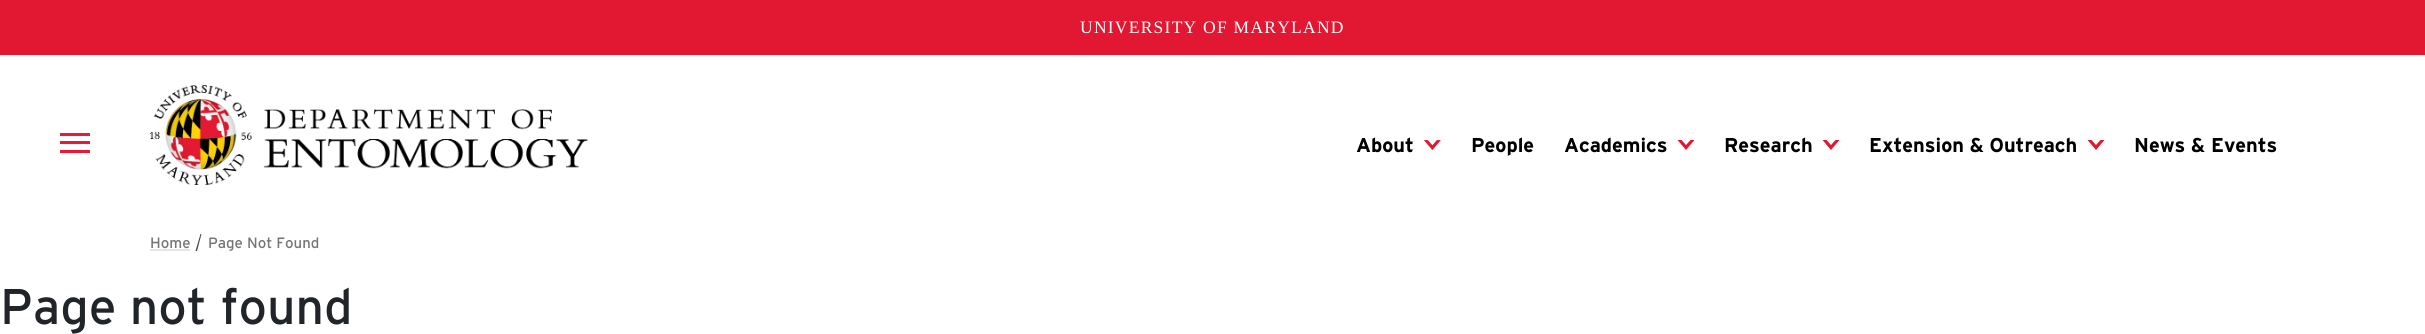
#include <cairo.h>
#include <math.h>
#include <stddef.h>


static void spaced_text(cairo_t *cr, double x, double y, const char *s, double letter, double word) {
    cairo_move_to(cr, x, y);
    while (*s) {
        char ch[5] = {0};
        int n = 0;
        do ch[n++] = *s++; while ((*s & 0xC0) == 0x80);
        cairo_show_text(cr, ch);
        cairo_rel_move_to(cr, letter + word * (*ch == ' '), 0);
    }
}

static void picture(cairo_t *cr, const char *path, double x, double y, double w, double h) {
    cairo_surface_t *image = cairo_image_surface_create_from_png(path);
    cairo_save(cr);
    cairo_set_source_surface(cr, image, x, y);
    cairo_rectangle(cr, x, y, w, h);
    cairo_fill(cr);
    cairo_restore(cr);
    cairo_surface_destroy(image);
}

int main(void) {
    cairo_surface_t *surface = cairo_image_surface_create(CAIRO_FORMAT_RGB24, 2425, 334);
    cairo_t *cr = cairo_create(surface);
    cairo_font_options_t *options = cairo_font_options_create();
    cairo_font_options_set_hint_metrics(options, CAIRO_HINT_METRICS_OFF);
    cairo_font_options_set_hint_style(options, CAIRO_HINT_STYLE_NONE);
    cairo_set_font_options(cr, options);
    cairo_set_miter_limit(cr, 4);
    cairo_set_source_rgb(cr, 1, 1, 1);
    cairo_paint(cr);
    cairo_set_source_rgb(cr, 0.886, 0.094, 0.2);
    cairo_rectangle(cr, 0, 0, 2425, 55);
    cairo_fill(cr);
    cairo_select_font_face(cr, "Liberation Serif", CAIRO_FONT_SLANT_NORMAL, CAIRO_FONT_WEIGHT_NORMAL);
    cairo_set_font_size(cr, 17.5);
    cairo_set_source_rgb(cr, 1, 1, 1);
    spaced_text(cr, 1080, 33, "UNIVERSITY OF MARYLAND", 1.25, 0);
    cairo_set_source_rgb(cr, 0.929, 0.094, 0.2);
    cairo_rectangle(cr, 60, 133, 30, 3);
    cairo_fill(cr);
    cairo_rectangle(cr, 60, 141, 30, 3);
    cairo_fill(cr);
    cairo_rectangle(cr, 60, 150, 30, 3);
    cairo_fill(cr);
    picture(cr, "img1.png", 150, 85, 438, 100);
    cairo_select_font_face(cr, "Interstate", CAIRO_FONT_SLANT_NORMAL, CAIRO_FONT_WEIGHT_BOLD);
    cairo_set_font_size(cr, 20);
    cairo_set_source_rgb(cr, 0, 0, 0);
    cairo_move_to(cr, 1356, 152);
    cairo_show_text(cr, "About");
    picture(cr, "img2.png", 1424, 140, 17, 10);
    cairo_move_to(cr, 1471, 152);
    cairo_show_text(cr, "People");
    cairo_move_to(cr, 1564, 152);
    cairo_show_text(cr, "Academics");
    cairo_set_source_rgb(cr, 0.886, 0.094, 0.2);
    cairo_set_fill_rule(cr, CAIRO_FILL_RULE_EVEN_ODD);
    cairo_new_path(cr);
    cairo_move_to(cr, 1686, 145);
    cairo_line_to(cr, 1690.5, 140);
    cairo_line_to(cr, 1694.5, 140);
    cairo_line_to(cr, 1686, 150);
    cairo_line_to(cr, 1677.5, 140);
    cairo_line_to(cr, 1681.5, 140);
    cairo_close_path(cr);
    cairo_fill(cr);
    cairo_set_source_rgb(cr, 0, 0, 0);
    cairo_move_to(cr, 1724, 152);
    cairo_show_text(cr, "Research");
    cairo_set_source_rgb(cr, 0.886, 0.094, 0.2);
    cairo_new_path(cr);
    cairo_move_to(cr, 1831, 145);
    cairo_line_to(cr, 1835.5, 140);
    cairo_line_to(cr, 1839.5, 140);
    cairo_line_to(cr, 1831, 150);
    cairo_line_to(cr, 1822.5, 140);
    cairo_line_to(cr, 1826.5, 140);
    cairo_close_path(cr);
    cairo_fill(cr);
    cairo_set_source_rgb(cr, 0, 0, 0);
    cairo_move_to(cr, 1869, 152);
    cairo_show_text(cr, "Extension & Outreach");
    cairo_set_source_rgb(cr, 0.886, 0.094, 0.2);
    cairo_new_path(cr);
    cairo_move_to(cr, 2096, 145);
    cairo_line_to(cr, 2100.5, 140);
    cairo_line_to(cr, 2104.5, 140);
    cairo_line_to(cr, 2096, 150);
    cairo_line_to(cr, 2087.5, 140);
    cairo_line_to(cr, 2091.5, 140);
    cairo_close_path(cr);
    cairo_fill(cr);
    cairo_set_source_rgb(cr, 0, 0, 0);
    cairo_move_to(cr, 2134, 152);
    cairo_show_text(cr, "News & Events");
    cairo_select_font_face(cr, "Interstate", CAIRO_FONT_SLANT_NORMAL, CAIRO_FONT_WEIGHT_NORMAL);
    cairo_set_font_size(cr, 15);
    cairo_set_source_rgb(cr, 0.459, 0.459, 0.459);
    cairo_move_to(cr, 150, 248);
    cairo_show_text(cr, "Home");
    cairo_set_source_rgb(cr, 0.902, 0.902, 0.902);
    cairo_rectangle(cr, 150, 249, 40, 2);
    cairo_fill(cr);
    cairo_set_source_rgb(cr, 0.271, 0.271, 0.271);
    cairo_set_fill_rule(cr, CAIRO_FILL_RULE_WINDING);
    cairo_new_path(cr);
    cairo_move_to(cr, 200.5, 234);
    cairo_line_to(cr, 201.5, 234);
    cairo_line_to(cr, 197, 251);
    cairo_line_to(cr, 195.5, 251);
    cairo_close_path(cr);
    cairo_fill(cr);
    cairo_set_source_rgb(cr, 0.459, 0.459, 0.459);
    cairo_move_to(cr, 208, 248);
    cairo_show_text(cr, "Page Not Found");
    cairo_set_font_size(cr, 50);
    cairo_set_source_rgb(cr, 0.129, 0.145, 0.161);
    cairo_move_to(cr, 0, 324);
    cairo_show_text(cr, "Page not found");
    cairo_surface_write_to_png(surface, "page.png");
    cairo_font_options_destroy(options);
    cairo_destroy(cr);
    cairo_surface_destroy(surface);
    return 0;
}
